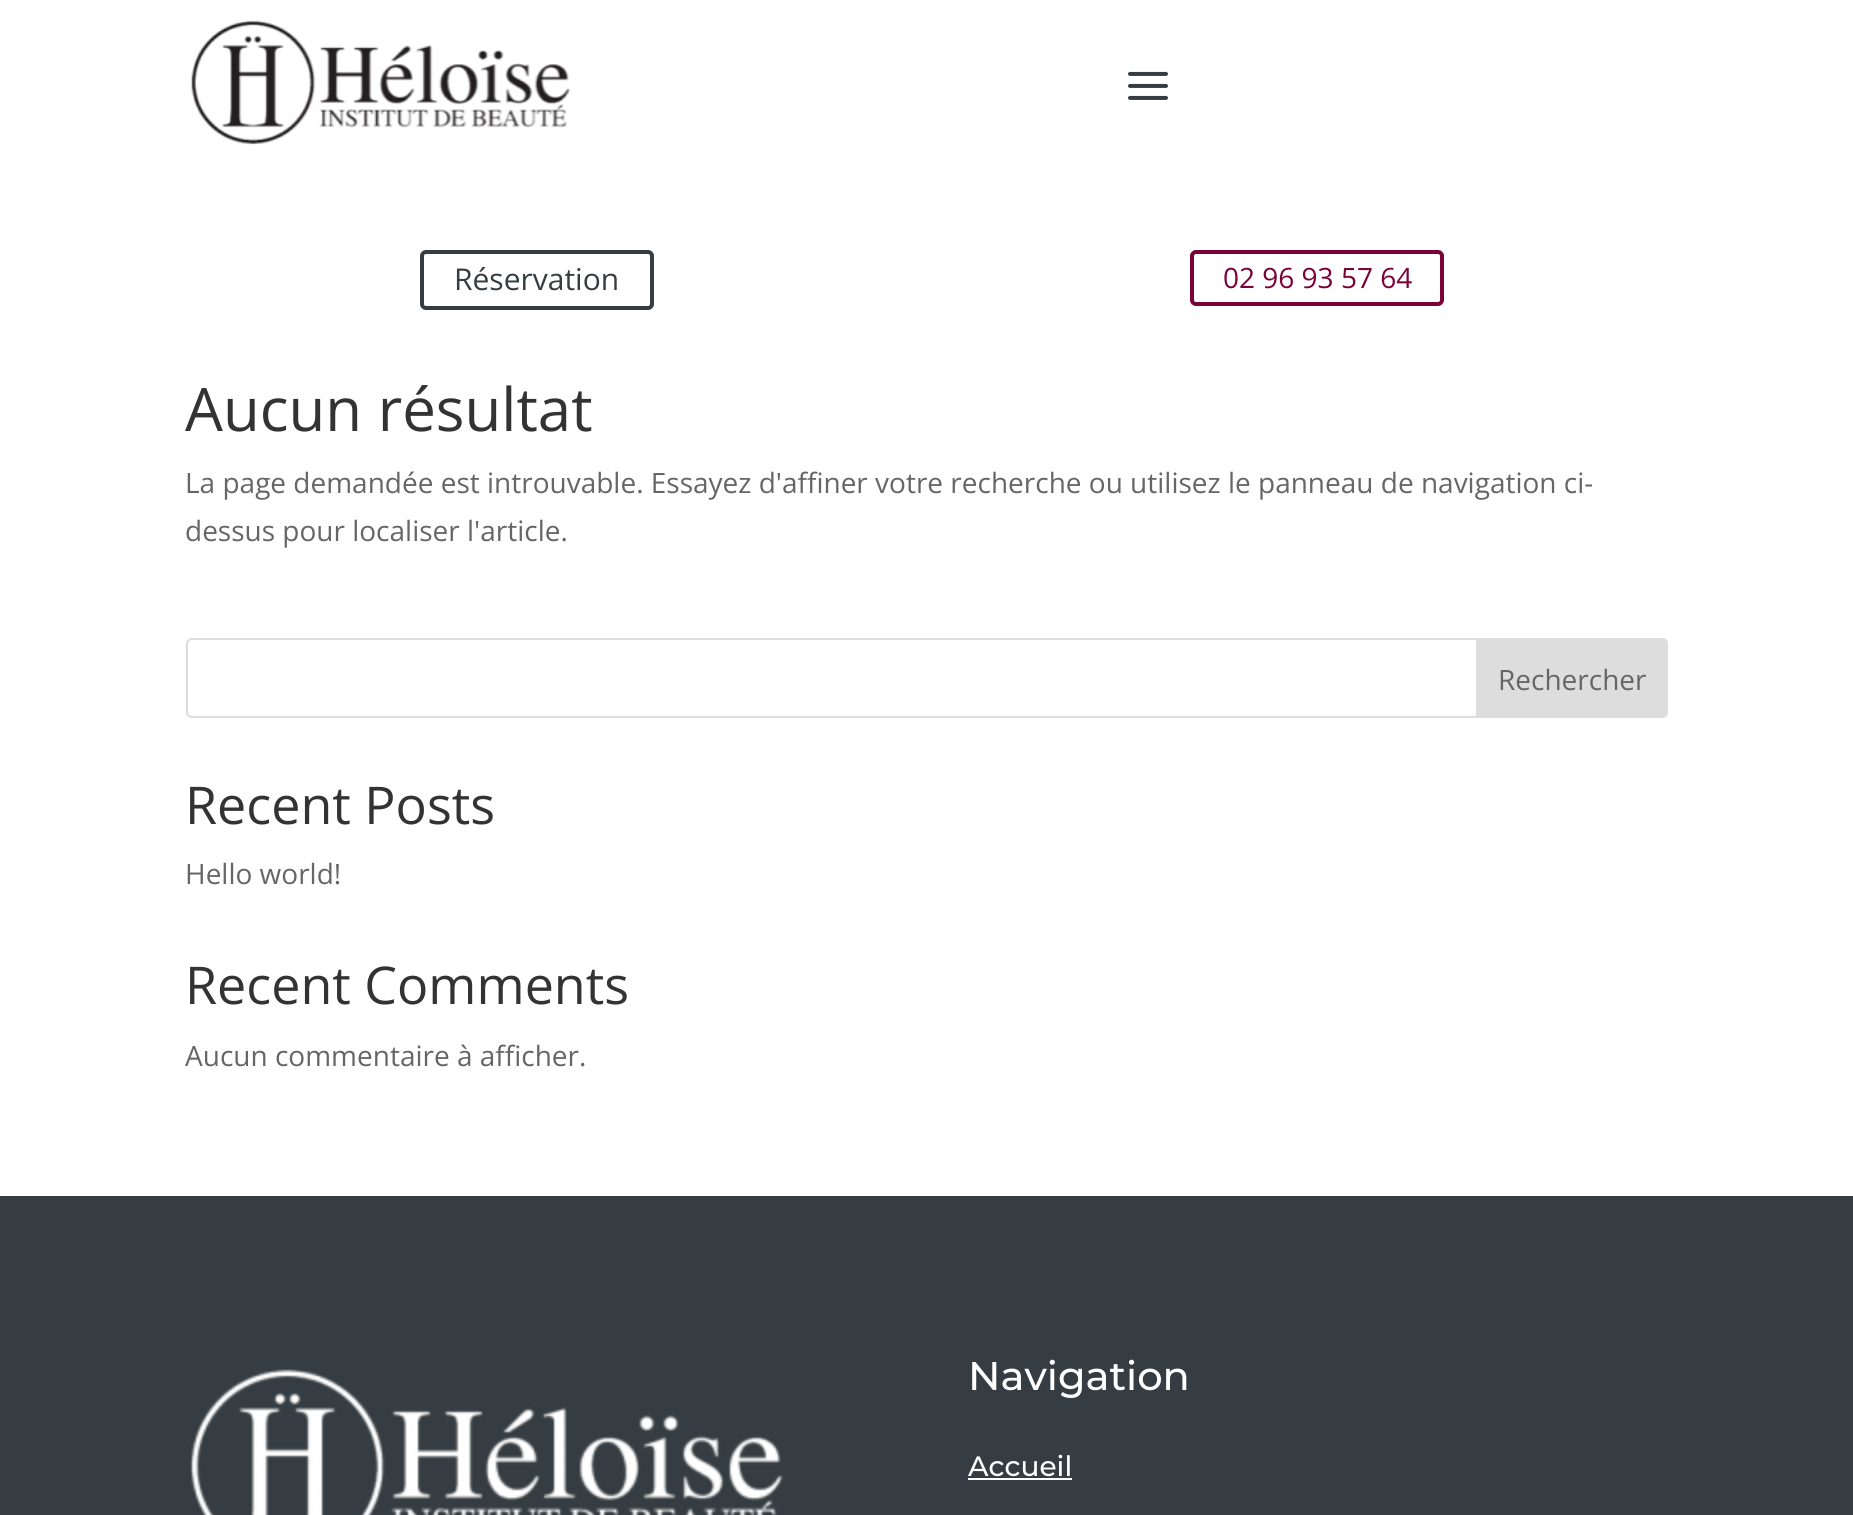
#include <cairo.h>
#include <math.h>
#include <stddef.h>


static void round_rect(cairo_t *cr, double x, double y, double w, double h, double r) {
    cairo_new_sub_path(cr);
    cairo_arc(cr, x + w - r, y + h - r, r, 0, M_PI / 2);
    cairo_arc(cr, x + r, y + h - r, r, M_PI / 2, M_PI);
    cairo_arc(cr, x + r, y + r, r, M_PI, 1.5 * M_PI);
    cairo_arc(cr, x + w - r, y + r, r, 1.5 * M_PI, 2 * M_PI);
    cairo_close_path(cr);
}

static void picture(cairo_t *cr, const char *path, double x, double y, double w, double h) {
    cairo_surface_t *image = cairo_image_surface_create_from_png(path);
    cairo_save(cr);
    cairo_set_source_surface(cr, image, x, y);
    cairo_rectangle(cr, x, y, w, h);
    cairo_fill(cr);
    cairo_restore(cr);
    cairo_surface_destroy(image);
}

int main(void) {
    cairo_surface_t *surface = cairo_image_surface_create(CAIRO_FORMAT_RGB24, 1853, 1515);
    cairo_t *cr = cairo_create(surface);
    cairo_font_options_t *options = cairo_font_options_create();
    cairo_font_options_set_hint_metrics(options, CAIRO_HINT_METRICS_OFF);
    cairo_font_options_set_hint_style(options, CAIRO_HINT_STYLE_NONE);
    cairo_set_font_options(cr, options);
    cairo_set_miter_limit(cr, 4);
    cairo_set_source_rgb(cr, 1, 1, 1);
    cairo_paint(cr);
    picture(cr, "img1.png", 190, 20, 381, 125);
    picture(cr, "img2.png", 1128, 71, 40, 29);
    round_rect(cr, 422, 252, 230, 56, 4);
    cairo_set_source_rgb(cr, 0.208, 0.239, 0.259);
    cairo_set_line_width(cr, 4);
    cairo_stroke(cr);
    cairo_select_font_face(cr, "Open Sans", CAIRO_FONT_SLANT_NORMAL, CAIRO_FONT_WEIGHT_NORMAL);
    cairo_set_font_size(cr, 30);
    cairo_move_to(cr, 454, 290);
    cairo_show_text(cr, "Réservation");
    round_rect(cr, 1192, 252, 250, 52, 4);
    cairo_set_source_rgb(cr, 0.482, 0.008, 0.22);
    cairo_stroke(cr);
    cairo_set_font_size(cr, 28);
    cairo_move_to(cr, 1223, 288);
    cairo_show_text(cr, "02 96 93 57 64");
    cairo_set_font_size(cr, 60);
    cairo_set_source_rgb(cr, 0.2, 0.2, 0.2);
    cairo_move_to(cr, 185, 431);
    cairo_show_text(cr, "Aucun résultat");
    cairo_set_font_size(cr, 28);
    cairo_set_source_rgb(cr, 0.4, 0.4, 0.4);
    cairo_move_to(cr, 185, 493);
    cairo_show_text(cr, "La page demandée est introuvable. Essayez d'affiner votre recherche ou utilisez le panneau de navigation ci-");
    cairo_move_to(cr, 185, 541);
    cairo_show_text(cr, "dessus pour localiser l'article.");
    round_rect(cr, 187, 639, 1480, 78, 5);
    cairo_set_source_rgb(cr, 0.867, 0.867, 0.867);
    cairo_set_line_width(cr, 2);
    cairo_stroke(cr);
    cairo_new_path(cr);
    cairo_move_to(cr, 1477, 639);
    cairo_line_to(cr, 1662, 639);
    cairo_curve_to(cr, 1665, 639, 1667, 641, 1667, 644);
    cairo_line_to(cr, 1667, 712);
    cairo_curve_to(cr, 1667, 715, 1665, 717, 1662, 717);
    cairo_line_to(cr, 1477, 717);
    cairo_close_path(cr);
    cairo_fill_preserve(cr);
    cairo_stroke(cr);
    cairo_set_source_rgb(cr, 0.4, 0.4, 0.4);
    cairo_move_to(cr, 1498, 690);
    cairo_show_text(cr, "Rechercher");
    cairo_set_font_size(cr, 52);
    cairo_set_source_rgb(cr, 0.2, 0.2, 0.2);
    cairo_move_to(cr, 185, 824);
    cairo_show_text(cr, "Recent Posts");
    cairo_set_font_size(cr, 28);
    cairo_set_source_rgb(cr, 0.4, 0.4, 0.4);
    cairo_move_to(cr, 185, 884);
    cairo_show_text(cr, "Hello world!");
    cairo_set_font_size(cr, 52);
    cairo_set_source_rgb(cr, 0.2, 0.2, 0.2);
    cairo_move_to(cr, 185, 1004);
    cairo_show_text(cr, "Recent Comments");
    cairo_set_font_size(cr, 28);
    cairo_set_source_rgb(cr, 0.4, 0.4, 0.4);
    cairo_move_to(cr, 185, 1066);
    cairo_show_text(cr, "Aucun commentaire à afficher.");
    cairo_set_source_rgb(cr, 0.208, 0.239, 0.259);
    cairo_rectangle(cr, 0, 1196, 1853, 319);
    cairo_fill(cr);
    picture(cr, "img3.png", 190, 1369, 593, 146);
    cairo_select_font_face(cr, "Montserrat Medium", CAIRO_FONT_SLANT_NORMAL, CAIRO_FONT_WEIGHT_NORMAL);
    cairo_set_font_size(cr, 40);
    cairo_set_source_rgb(cr, 1, 1, 1);
    cairo_move_to(cr, 968, 1390);
    cairo_show_text(cr, "Navigation");
    cairo_set_font_size(cr, 28);
    cairo_move_to(cr, 968, 1476);
    cairo_show_text(cr, "Accueil");
    cairo_rectangle(cr, 968, 1478, 104, 2);
    cairo_fill(cr);
    cairo_surface_write_to_png(surface, "page.png");
    cairo_font_options_destroy(options);
    cairo_destroy(cr);
    cairo_surface_destroy(surface);
    return 0;
}
